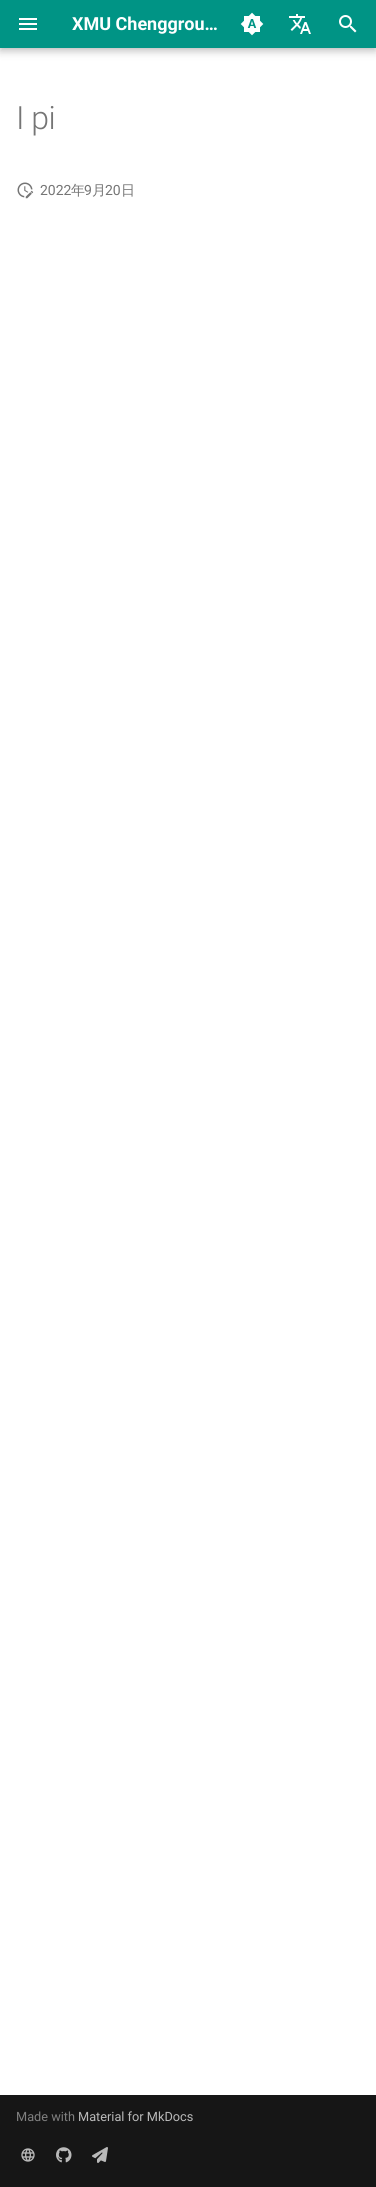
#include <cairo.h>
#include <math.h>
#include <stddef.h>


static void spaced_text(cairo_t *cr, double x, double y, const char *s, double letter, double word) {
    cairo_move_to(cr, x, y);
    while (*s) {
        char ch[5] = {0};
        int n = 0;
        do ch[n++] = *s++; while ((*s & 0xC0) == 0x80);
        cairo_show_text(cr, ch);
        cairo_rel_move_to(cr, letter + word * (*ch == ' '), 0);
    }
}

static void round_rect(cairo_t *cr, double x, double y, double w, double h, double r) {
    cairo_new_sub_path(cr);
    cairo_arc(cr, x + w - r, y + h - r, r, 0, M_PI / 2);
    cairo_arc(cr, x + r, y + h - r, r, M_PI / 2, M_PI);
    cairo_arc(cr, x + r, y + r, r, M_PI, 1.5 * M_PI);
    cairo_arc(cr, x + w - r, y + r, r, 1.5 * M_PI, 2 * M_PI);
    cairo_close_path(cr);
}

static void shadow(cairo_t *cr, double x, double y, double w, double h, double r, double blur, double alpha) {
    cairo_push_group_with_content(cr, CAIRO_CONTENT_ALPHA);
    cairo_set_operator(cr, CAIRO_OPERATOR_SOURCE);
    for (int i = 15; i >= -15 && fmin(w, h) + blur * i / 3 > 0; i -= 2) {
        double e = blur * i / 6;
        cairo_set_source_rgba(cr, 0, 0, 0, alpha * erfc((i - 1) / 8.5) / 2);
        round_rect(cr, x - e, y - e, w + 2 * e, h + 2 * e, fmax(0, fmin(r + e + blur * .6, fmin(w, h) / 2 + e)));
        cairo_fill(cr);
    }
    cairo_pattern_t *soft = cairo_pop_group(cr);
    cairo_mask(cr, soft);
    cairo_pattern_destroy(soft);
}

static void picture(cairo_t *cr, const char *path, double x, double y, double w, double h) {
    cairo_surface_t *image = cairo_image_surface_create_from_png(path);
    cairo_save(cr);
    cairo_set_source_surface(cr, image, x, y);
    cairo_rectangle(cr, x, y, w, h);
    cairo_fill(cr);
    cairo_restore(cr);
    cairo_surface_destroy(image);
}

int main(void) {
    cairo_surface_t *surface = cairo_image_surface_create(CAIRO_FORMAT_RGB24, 376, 2187);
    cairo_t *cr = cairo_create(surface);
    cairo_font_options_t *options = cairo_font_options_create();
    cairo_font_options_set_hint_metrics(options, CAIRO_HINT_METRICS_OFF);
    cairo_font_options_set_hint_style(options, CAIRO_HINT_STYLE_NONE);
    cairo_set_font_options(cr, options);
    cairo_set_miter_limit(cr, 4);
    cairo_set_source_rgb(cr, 1, 1, 1);
    cairo_paint(cr);
    cairo_set_source_rgb(cr, 0, 0, 0);
    shadow(cr, 0, 4, 376, 48, 0, 4, 0.2);
    shadow(cr, 0, 0, 376, 48, 0, 2, 0.1);
    cairo_set_source_rgb(cr, 0, 0.58, 0.522);
    cairo_rectangle(cr, 0, 0, 376, 48);
    cairo_fill(cr);
    picture(cr, "img1.png", 19, 18, 18, 12);
    cairo_select_font_face(cr, "Roboto", CAIRO_FONT_SLANT_NORMAL, CAIRO_FONT_WEIGHT_BOLD);
    cairo_set_font_size(cr, 18);
    cairo_set_source_rgb(cr, 1, 1, 1);
    cairo_move_to(cr, 72, 30);
    cairo_show_text(cr, "XMU Chenggrou…");
    picture(cr, "img2.png", 240, 12, 24, 24);
    picture(cr, "img3.png", 289, 14, 22, 20);
    picture(cr, "img4.png", 339, 15, 18, 18);
    cairo_select_font_face(cr, "Roboto Light", CAIRO_FONT_SLANT_NORMAL, CAIRO_FONT_WEIGHT_NORMAL);
    cairo_set_font_size(cr, 32);
    cairo_set_source_rgb(cr, 0.459, 0.459, 0.459);
    spaced_text(cr, 16, 129, "I pi", -0.5, 0);
    picture(cr, "img5.png", 17, 182, 17, 17);
    cairo_select_font_face(cr, "Roboto", CAIRO_FONT_SLANT_NORMAL, CAIRO_FONT_WEIGHT_NORMAL);
    cairo_set_font_size(cr, 14);
    cairo_move_to(cr, 40, 195);
    cairo_show_text(cr, "2022");
    cairo_select_font_face(cr, "WenQuanYi Zen Hei Medium", CAIRO_FONT_SLANT_NORMAL, CAIRO_FONT_WEIGHT_NORMAL);
    cairo_move_to(cr, 71, 195);
    cairo_show_text(cr, "年");
    cairo_select_font_face(cr, "Roboto", CAIRO_FONT_SLANT_NORMAL, CAIRO_FONT_WEIGHT_NORMAL);
    cairo_move_to(cr, 84, 195);
    cairo_show_text(cr, "9");
    cairo_select_font_face(cr, "WenQuanYi Zen Hei Medium", CAIRO_FONT_SLANT_NORMAL, CAIRO_FONT_WEIGHT_NORMAL);
    cairo_move_to(cr, 92, 195);
    cairo_show_text(cr, "月");
    cairo_select_font_face(cr, "Roboto", CAIRO_FONT_SLANT_NORMAL, CAIRO_FONT_WEIGHT_NORMAL);
    cairo_move_to(cr, 105, 195);
    cairo_show_text(cr, "20");
    cairo_select_font_face(cr, "WenQuanYi Zen Hei Medium", CAIRO_FONT_SLANT_NORMAL, CAIRO_FONT_WEIGHT_NORMAL);
    cairo_move_to(cr, 121, 195);
    cairo_show_text(cr, "日");
    cairo_set_source_rgb(cr, 0.086, 0.086, 0.086);
    cairo_rectangle(cr, 0, 2095, 376, 92);
    cairo_fill(cr);
    cairo_select_font_face(cr, "Roboto", CAIRO_FONT_SLANT_NORMAL, CAIRO_FONT_WEIGHT_NORMAL);
    cairo_set_font_size(cr, 12.75);
    cairo_set_source_rgb(cr, 0.498, 0.498, 0.498);
    cairo_move_to(cr, 16, 2121);
    cairo_show_text(cr, "Made with");
    cairo_set_source_rgb(cr, 0.725, 0.725, 0.725);
    cairo_move_to(cr, 78, 2121);
    cairo_show_text(cr, "Material for MkDocs");
    picture(cr, "img6.png", 21, 2148, 14, 14);
    picture(cr, "img7.png", 56, 2147, 16, 16);
    picture(cr, "img8.png", 92, 2147, 16, 16);
    cairo_surface_write_to_png(surface, "page.png");
    cairo_font_options_destroy(options);
    cairo_destroy(cr);
    cairo_surface_destroy(surface);
    return 0;
}
